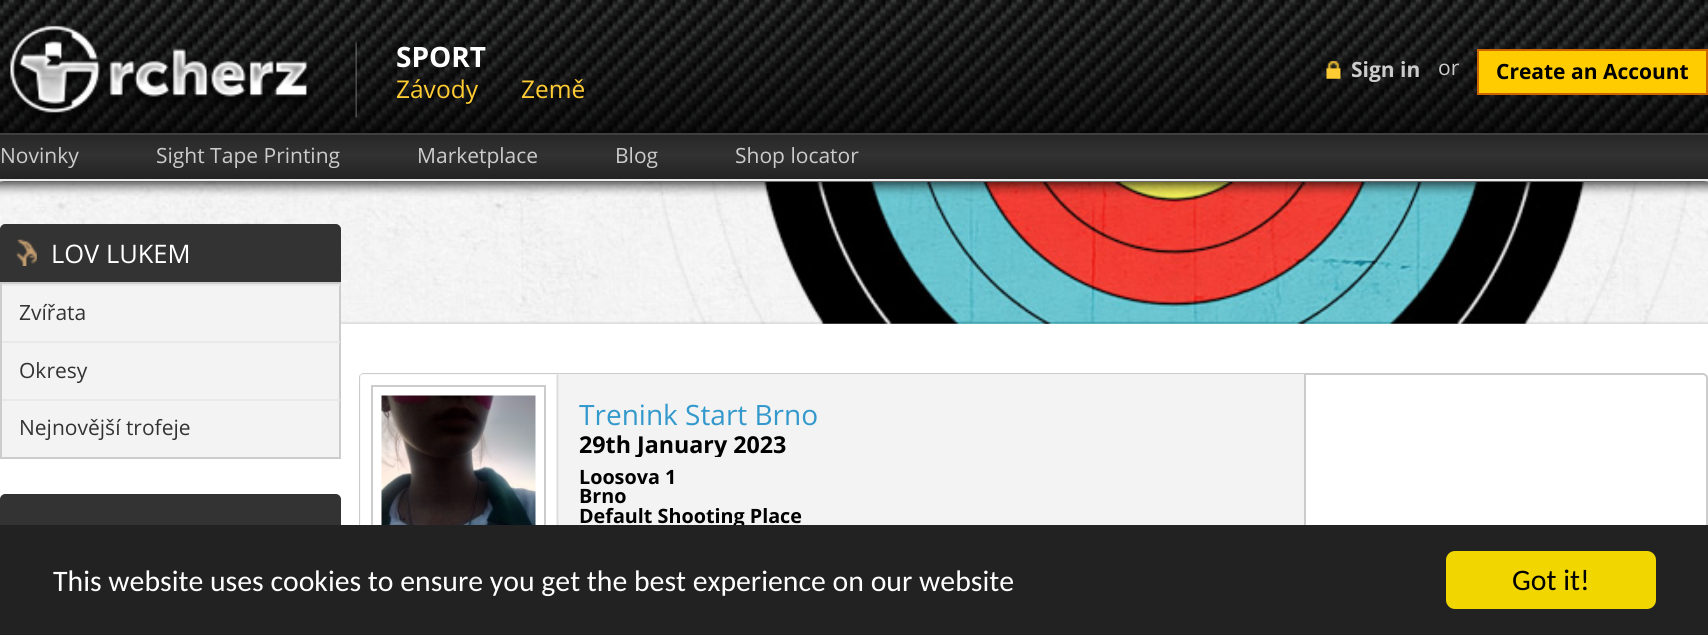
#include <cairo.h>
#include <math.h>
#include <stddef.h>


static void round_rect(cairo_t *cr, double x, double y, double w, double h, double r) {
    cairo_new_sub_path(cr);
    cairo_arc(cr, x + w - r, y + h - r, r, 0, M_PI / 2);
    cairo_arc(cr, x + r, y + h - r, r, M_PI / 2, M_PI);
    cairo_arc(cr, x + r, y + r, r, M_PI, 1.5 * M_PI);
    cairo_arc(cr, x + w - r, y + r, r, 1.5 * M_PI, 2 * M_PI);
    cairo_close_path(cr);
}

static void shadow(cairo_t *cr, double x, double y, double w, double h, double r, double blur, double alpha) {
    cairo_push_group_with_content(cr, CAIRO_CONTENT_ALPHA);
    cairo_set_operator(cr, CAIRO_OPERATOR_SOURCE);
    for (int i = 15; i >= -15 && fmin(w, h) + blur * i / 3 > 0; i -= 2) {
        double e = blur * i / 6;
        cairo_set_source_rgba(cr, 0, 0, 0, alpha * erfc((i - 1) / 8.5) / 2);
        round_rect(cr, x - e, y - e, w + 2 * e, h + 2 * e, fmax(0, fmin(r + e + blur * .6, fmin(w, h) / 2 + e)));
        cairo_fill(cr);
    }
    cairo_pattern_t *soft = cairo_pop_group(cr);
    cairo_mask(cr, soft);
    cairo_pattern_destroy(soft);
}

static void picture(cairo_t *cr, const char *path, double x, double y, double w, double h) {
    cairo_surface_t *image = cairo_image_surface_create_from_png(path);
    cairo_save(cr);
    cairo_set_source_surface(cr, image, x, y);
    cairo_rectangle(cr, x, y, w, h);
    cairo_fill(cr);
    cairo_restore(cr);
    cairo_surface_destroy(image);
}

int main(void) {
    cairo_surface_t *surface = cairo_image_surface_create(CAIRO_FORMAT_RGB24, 1708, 635);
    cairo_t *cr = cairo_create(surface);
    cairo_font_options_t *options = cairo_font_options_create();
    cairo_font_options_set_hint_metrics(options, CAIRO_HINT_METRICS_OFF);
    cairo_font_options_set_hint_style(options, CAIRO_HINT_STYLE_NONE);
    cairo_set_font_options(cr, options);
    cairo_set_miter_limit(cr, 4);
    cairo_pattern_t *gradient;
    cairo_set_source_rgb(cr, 1, 1, 1);
    cairo_paint(cr);
    picture(cr, "img1.png", 0, 0, 1708, 133);
    picture(cr, "img2.png", 5, 25, 306, 98);
    picture(cr, "img3.png", 353, 41, 4, 77);
    cairo_select_font_face(cr, "Open Sans", CAIRO_FONT_SLANT_NORMAL, CAIRO_FONT_WEIGHT_BOLD);
    cairo_set_font_size(cr, 28);
    cairo_set_source_rgb(cr, 1, 1, 1);
    cairo_move_to(cr, 396, 67);
    cairo_show_text(cr, "SPORT");
    cairo_select_font_face(cr, "Open Sans", CAIRO_FONT_SLANT_NORMAL, CAIRO_FONT_WEIGHT_NORMAL);
    cairo_set_font_size(cr, 24.5);
    cairo_set_source_rgb(cr, 1, 0.8, 0.2);
    cairo_move_to(cr, 396, 98);
    cairo_show_text(cr, "Závody");
    cairo_move_to(cr, 521, 98);
    cairo_show_text(cr, "Země");
    picture(cr, "img4.png", 1326, 61, 15, 18);
    cairo_select_font_face(cr, "Open Sans", CAIRO_FONT_SLANT_NORMAL, CAIRO_FONT_WEIGHT_BOLD);
    cairo_set_font_size(cr, 21);
    cairo_set_source_rgb(cr, 0.8, 0.8, 0.8);
    cairo_move_to(cr, 1351, 77);
    cairo_show_text(cr, "Sign in");
    cairo_select_font_face(cr, "Open Sans", CAIRO_FONT_SLANT_NORMAL, CAIRO_FONT_WEIGHT_NORMAL);
    cairo_move_to(cr, 1438, 75);
    cairo_show_text(cr, "or");
    cairo_set_source_rgb(cr, 1, 0.8, 0);
    cairo_rectangle(cr, 1478, 50, 229, 44);
    cairo_fill_preserve(cr);
    cairo_set_source_rgb(cr, 0.8, 0.4, 0);
    cairo_stroke(cr);
    cairo_select_font_face(cr, "Open Sans", CAIRO_FONT_SLANT_NORMAL, CAIRO_FONT_WEIGHT_BOLD);
    cairo_set_source_rgb(cr, 0, 0, 0);
    cairo_move_to(cr, 1496, 79);
    cairo_show_text(cr, "Create an Account");
    cairo_set_source_rgb(cr, 0.4, 0.4, 0.4);
    shadow(cr, 0, 142, 1708, 47, 0, 2.5, 1);
    gradient = cairo_pattern_create_linear(854, 135, 854, 179);
    cairo_pattern_add_color_stop_rgba(gradient, 0, 0.153, 0.153, 0.153, 1);
    cairo_pattern_add_color_stop_rgba(gradient, 0.46, 0.196, 0.196, 0.196, 1);
    cairo_pattern_add_color_stop_rgba(gradient, 1, 0.133, 0.133, 0.133, 1);
    cairo_set_source(cr, gradient);
    cairo_pattern_destroy(gradient);
    cairo_rectangle(cr, 0, 135, 1708, 44);
    cairo_fill(cr);
    cairo_set_source_rgb(cr, 0.251, 0.251, 0.251);
    cairo_rectangle(cr, 0, 133, 1708, 2);
    cairo_fill(cr);
    cairo_set_source_rgb(cr, 0.918, 0.918, 0.918);
    cairo_rectangle(cr, 0, 179, 1708, 2);
    cairo_fill(cr);
    cairo_select_font_face(cr, "Open Sans", CAIRO_FONT_SLANT_NORMAL, CAIRO_FONT_WEIGHT_NORMAL);
    cairo_set_source_rgb(cr, 0.8, 0.8, 0.8);
    cairo_move_to(cr, 0, 163);
    cairo_show_text(cr, "Novinky");
    cairo_move_to(cr, 156, 163);
    cairo_show_text(cr, "Sight Tape Printing");
    cairo_move_to(cr, 417, 163);
    cairo_show_text(cr, "Marketplace");
    cairo_move_to(cr, 615, 163);
    cairo_show_text(cr, "Blog");
    cairo_move_to(cr, 735, 163);
    cairo_show_text(cr, "Shop locator");
    picture(cr, "img5.png", 341, 323, 1367, 1);
    picture(cr, "img6.png", 0, 182, 1708, 142);
    cairo_set_source_rgb(cr, 0.2, 0.2, 0.2);
    cairo_new_path(cr);
    cairo_move_to(cr, 5, 225);
    cairo_line_to(cr, 336, 225);
    cairo_curve_to(cr, 338, 225, 340, 227, 340, 229);
    cairo_line_to(cr, 340, 281);
    cairo_line_to(cr, 1, 281);
    cairo_line_to(cr, 1, 229);
    cairo_curve_to(cr, 1, 227, 3, 225, 5, 225);
    cairo_close_path(cr);
    cairo_fill_preserve(cr);
    cairo_stroke(cr);
    picture(cr, "img7.png", 16, 239, 21, 27);
    cairo_set_font_size(cr, 25.5);
    cairo_set_source_rgb(cr, 1, 1, 1);
    cairo_move_to(cr, 51, 263);
    cairo_show_text(cr, "LOV LUKEM");
    cairo_set_source_rgb(cr, 0.953, 0.953, 0.953);
    cairo_rectangle(cr, 2, 286, 337, 171);
    cairo_fill(cr);
    cairo_rectangle(cr, 1, 283, 339, 175);
    cairo_set_source_rgb(cr, 0.8, 0.8, 0.8);
    cairo_stroke(cr);
    cairo_set_source_rgb(cr, 0.914, 0.914, 0.914);
    cairo_rectangle(cr, 2, 284, 338, 2);
    cairo_fill(cr);
    cairo_set_font_size(cr, 21);
    cairo_set_source_rgb(cr, 0.2, 0.2, 0.2);
    cairo_move_to(cr, 19, 320);
    cairo_show_text(cr, "Zvířata");
    cairo_set_source_rgb(cr, 0.914, 0.914, 0.914);
    cairo_rectangle(cr, 2, 341, 338, 2);
    cairo_fill(cr);
    cairo_set_source_rgb(cr, 0.2, 0.2, 0.2);
    cairo_move_to(cr, 19, 378);
    cairo_show_text(cr, "Okresy");
    cairo_set_source_rgb(cr, 0.914, 0.914, 0.914);
    cairo_rectangle(cr, 2, 399, 338, 2);
    cairo_fill(cr);
    cairo_set_source_rgb(cr, 0.2, 0.2, 0.2);
    cairo_move_to(cr, 19, 435);
    cairo_show_text(cr, "Nejnovější trofeje");
    cairo_new_path(cr);
    cairo_move_to(cr, 5, 495);
    cairo_line_to(cr, 336, 495);
    cairo_curve_to(cr, 338, 495, 340, 497, 340, 499);
    cairo_line_to(cr, 340, 549);
    cairo_line_to(cr, 1, 549);
    cairo_line_to(cr, 1, 499);
    cairo_curve_to(cr, 1, 497, 3, 495, 5, 495);
    cairo_close_path(cr);
    cairo_fill_preserve(cr);
    cairo_stroke(cr);
    cairo_set_source_rgb(cr, 0.953, 0.953, 0.953);
    cairo_new_path(cr);
    cairo_move_to(cr, 364, 373);
    cairo_line_to(cr, 1304, 373);
    cairo_line_to(cr, 1304, 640);
    cairo_line_to(cr, 364, 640);
    cairo_curve_to(cr, 361, 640, 359, 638, 359, 635);
    cairo_line_to(cr, 359, 378);
    cairo_curve_to(cr, 359, 375, 361, 373, 364, 373);
    cairo_close_path(cr);
    cairo_fill(cr);
    cairo_set_source_rgb(cr, 0.8, 0.8, 0.8);
    cairo_set_fill_rule(cr, CAIRO_FILL_RULE_EVEN_ODD);
    cairo_new_path(cr);
    cairo_move_to(cr, 364, 373);
    cairo_line_to(cr, 1304, 373);
    cairo_line_to(cr, 1304, 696);
    cairo_line_to(cr, 364, 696);
    cairo_curve_to(cr, 361, 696, 359, 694, 359, 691);
    cairo_line_to(cr, 359, 378);
    cairo_curve_to(cr, 359, 375, 361, 373, 364, 373);
    cairo_close_path(cr);
    cairo_move_to(cr, 364, 374);
    cairo_line_to(cr, 1304, 374);
    cairo_line_to(cr, 1304, 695);
    cairo_line_to(cr, 364, 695);
    cairo_curve_to(cr, 362, 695, 360, 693, 360, 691);
    cairo_line_to(cr, 360, 378);
    cairo_curve_to(cr, 360, 376, 362, 374, 364, 374);
    cairo_close_path(cr);
    cairo_fill(cr);
    picture(cr, "img8.png", 360, 374, 199, 151);
    cairo_rectangle(cr, 372, 386, 173, 173);
    cairo_stroke(cr);
    picture(cr, "img9.png", 381, 395, 155, 130);
    cairo_set_font_size(cr, 28);
    cairo_set_source_rgb(cr, 0.2, 0.6, 0.8);
    cairo_move_to(cr, 579, 425);
    cairo_show_text(cr, "Trenink Start Brno");
    cairo_save(cr);
    cairo_set_fill_rule(cr, CAIRO_FILL_RULE_WINDING);
    cairo_rectangle(cr, 562, 429, 686, 28);
    cairo_clip(cr);
    cairo_select_font_face(cr, "Open Sans", CAIRO_FONT_SLANT_NORMAL, CAIRO_FONT_WEIGHT_BOLD);
    cairo_set_font_size(cr, 23.25);
    cairo_set_source_rgb(cr, 0, 0, 0);
    cairo_move_to(cr, 579, 453);
    cairo_show_text(cr, "29th January 2023");
    cairo_restore(cr);
    cairo_select_font_face(cr, "Open Sans", CAIRO_FONT_SLANT_NORMAL, CAIRO_FONT_WEIGHT_BOLD);
    cairo_set_font_size(cr, 19.75);
    cairo_set_source_rgb(cr, 0, 0, 0);
    cairo_move_to(cr, 579, 484);
    cairo_show_text(cr, "Loosova 1");
    cairo_move_to(cr, 579, 503);
    cairo_show_text(cr, "Brno");
    cairo_move_to(cr, 579, 523);
    cairo_show_text(cr, "Default Shooting Place");
    cairo_new_path(cr);
    cairo_move_to(cr, 1305, 374);
    cairo_line_to(cr, 1703, 374);
    cairo_curve_to(cr, 1705, 374, 1707, 376, 1707, 378);
    cairo_line_to(cr, 1707, 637);
    cairo_curve_to(cr, 1707, 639, 1705, 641, 1703, 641);
    cairo_line_to(cr, 1305, 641);
    cairo_close_path(cr);
    cairo_set_source_rgb(cr, 0.8, 0.8, 0.8);
    cairo_stroke(cr);
    cairo_set_source_rgb(cr, 0.133, 0.133, 0.133);
    cairo_rectangle(cr, 0, 525, 1708, 110);
    cairo_fill(cr);
    cairo_select_font_face(cr, "Carlito", CAIRO_FONT_SLANT_NORMAL, CAIRO_FONT_WEIGHT_NORMAL);
    cairo_set_font_size(cr, 29.75);
    cairo_set_source_rgb(cr, 1, 1, 1);
    cairo_move_to(cr, 53, 591);
    cairo_show_text(cr, "This website uses cookies to ensure you get the best experience on our website");
    cairo_set_source_rgb(cr, 0.945, 0.839, 0);
    round_rect(cr, 1446, 551, 210, 58, 9);
    cairo_fill(cr);
    cairo_set_source_rgb(cr, 0, 0, 0);
    cairo_move_to(cr, 1512, 590);
    cairo_show_text(cr, "Got it!");
    cairo_surface_write_to_png(surface, "page.png");
    cairo_font_options_destroy(options);
    cairo_destroy(cr);
    cairo_surface_destroy(surface);
    return 0;
}
